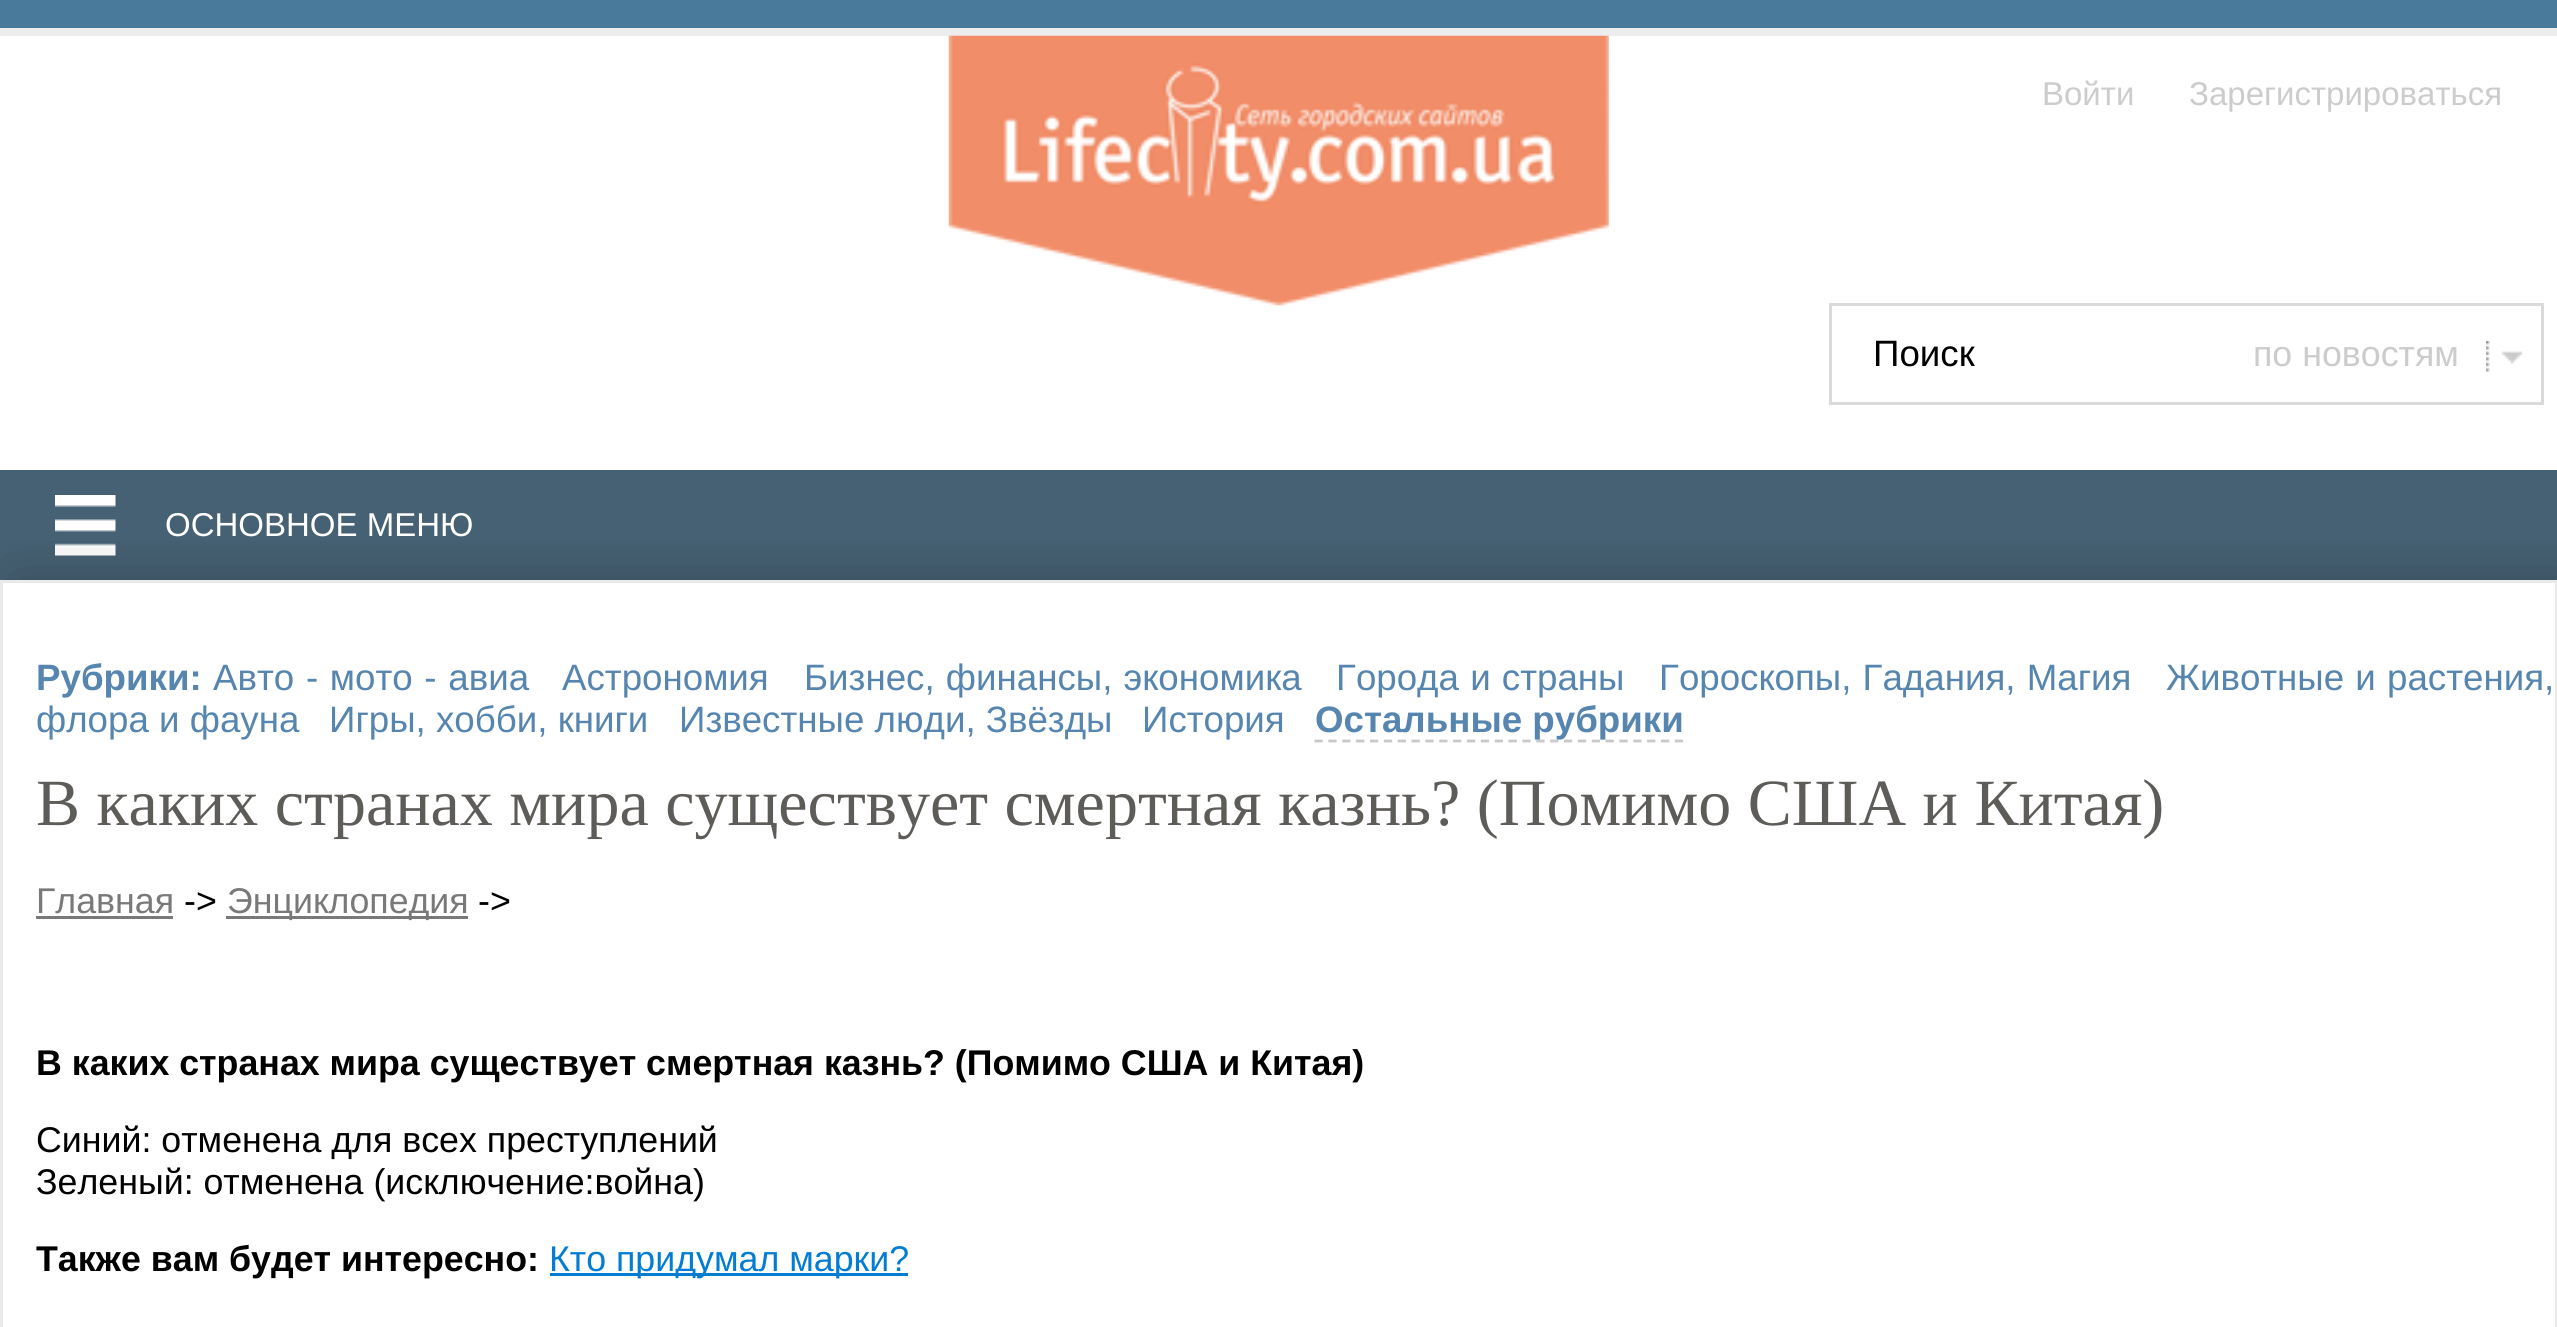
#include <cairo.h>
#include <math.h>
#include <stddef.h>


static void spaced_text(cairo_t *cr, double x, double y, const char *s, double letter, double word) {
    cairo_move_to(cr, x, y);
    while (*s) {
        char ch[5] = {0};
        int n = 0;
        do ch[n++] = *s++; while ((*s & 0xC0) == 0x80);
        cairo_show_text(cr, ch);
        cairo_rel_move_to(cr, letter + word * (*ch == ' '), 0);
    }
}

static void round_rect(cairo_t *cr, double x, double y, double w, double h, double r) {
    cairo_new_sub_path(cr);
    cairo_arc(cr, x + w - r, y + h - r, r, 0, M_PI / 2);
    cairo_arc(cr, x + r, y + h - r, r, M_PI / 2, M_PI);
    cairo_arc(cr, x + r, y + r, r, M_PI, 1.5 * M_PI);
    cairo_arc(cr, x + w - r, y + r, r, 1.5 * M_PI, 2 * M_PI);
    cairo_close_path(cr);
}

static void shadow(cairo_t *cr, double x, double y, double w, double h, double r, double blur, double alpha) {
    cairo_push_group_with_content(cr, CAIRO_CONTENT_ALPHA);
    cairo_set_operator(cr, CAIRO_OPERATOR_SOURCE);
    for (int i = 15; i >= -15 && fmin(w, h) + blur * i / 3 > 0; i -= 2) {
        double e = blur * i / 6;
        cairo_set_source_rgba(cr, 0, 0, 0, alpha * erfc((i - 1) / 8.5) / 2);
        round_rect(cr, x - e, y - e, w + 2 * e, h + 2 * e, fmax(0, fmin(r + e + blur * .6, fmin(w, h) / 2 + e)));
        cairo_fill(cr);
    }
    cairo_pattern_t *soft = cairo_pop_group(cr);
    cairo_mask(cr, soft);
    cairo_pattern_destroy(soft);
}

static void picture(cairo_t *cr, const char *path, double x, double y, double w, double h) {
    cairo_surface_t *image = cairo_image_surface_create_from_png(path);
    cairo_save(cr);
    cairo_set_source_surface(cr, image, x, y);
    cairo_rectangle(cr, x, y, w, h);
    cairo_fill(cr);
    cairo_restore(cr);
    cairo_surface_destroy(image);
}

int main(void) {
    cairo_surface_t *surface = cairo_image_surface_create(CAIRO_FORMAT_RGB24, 2557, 1327);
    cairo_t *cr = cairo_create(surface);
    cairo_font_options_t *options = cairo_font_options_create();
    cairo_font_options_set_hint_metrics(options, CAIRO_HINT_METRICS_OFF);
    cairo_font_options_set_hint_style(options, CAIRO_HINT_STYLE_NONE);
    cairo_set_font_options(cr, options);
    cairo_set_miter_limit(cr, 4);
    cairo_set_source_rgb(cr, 0.286, 0.475, 0.608);
    cairo_paint(cr);
    cairo_set_source_rgb(cr, 1, 1, 1);
    cairo_rectangle(cr, 0, 36, 2557, 1291);
    cairo_fill(cr);
    cairo_set_source_rgb(cr, 0.929, 0.929, 0.929);
    cairo_rectangle(cr, 0, 28, 2557, 8);
    cairo_fill(cr);
    picture(cr, "img1.png", 948, 35, 661, 271);
    cairo_select_font_face(cr, "Liberation Sans", CAIRO_FONT_SLANT_NORMAL, CAIRO_FONT_WEIGHT_NORMAL);
    cairo_set_font_size(cr, 33);
    cairo_set_source_rgb(cr, 0.8, 0.8, 0.8);
    cairo_move_to(cr, 2042, 105);
    cairo_show_text(cr, "Войти");
    cairo_move_to(cr, 2189, 105);
    cairo_show_text(cr, "Зарегистрироваться");
    cairo_set_source_rgb(cr, 0.855, 0.855, 0.855);
    cairo_rectangle(cr, 1829, 303, 715, 3);
    cairo_fill(cr);
    cairo_rectangle(cr, 1829, 402, 330, 3);
    cairo_fill(cr);
    cairo_rectangle(cr, 1829, 303, 3, 101);
    cairo_fill(cr);
    cairo_set_font_size(cr, 36.7);
    cairo_set_source_rgb(cr, 0, 0, 0);
    cairo_move_to(cr, 1873, 366);
    cairo_show_text(cr, "Поиск");
    picture(cr, "img2.png", 2486, 341, 37, 32);
    cairo_set_source_rgb(cr, 0.855, 0.855, 0.855);
    cairo_rectangle(cr, 2541, 303, 3, 101);
    cairo_fill(cr);
    cairo_rectangle(cr, 2159, 402, 385, 3);
    cairo_fill(cr);
    cairo_set_font_size(cr, 35.75);
    cairo_set_source_rgb(cr, 0.8, 0.8, 0.8);
    cairo_move_to(cr, 2253, 366);
    cairo_show_text(cr, "по новостям");
    cairo_set_source_rgb(cr, 0.275, 0.38, 0.455);
    cairo_rectangle(cr, 0, 470, 2557, 110);
    cairo_fill(cr);
    picture(cr, "img3.png", 55, 495, 61, 61);
    cairo_set_font_size(cr, 33);
    cairo_set_source_rgb(cr, 1, 1, 1);
    cairo_move_to(cr, 165, 536);
    cairo_show_text(cr, "ОСНОВНОЕ МЕНЮ");
    cairo_save(cr);
    cairo_rectangle(cr, 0, 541, 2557, 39);
    cairo_clip(cr);
    cairo_set_source_rgb(cr, 0, 0, 0);
    shadow(cr, 14, 580, 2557, 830, 0, 27.5, 0.25);
    cairo_restore(cr);
    cairo_rectangle(cr, 1.5, 581.5, 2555, 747);
    cairo_set_source_rgb(cr, 0.91, 0.914, 0.918);
    cairo_set_line_width(cr, 3);
    cairo_stroke(cr);
    cairo_select_font_face(cr, "Liberation Sans", CAIRO_FONT_SLANT_NORMAL, CAIRO_FONT_WEIGHT_BOLD);
    cairo_set_font_size(cr, 36.7);
    cairo_set_source_rgb(cr, 0.337, 0.522, 0.686);
    cairo_move_to(cr, 36, 690);
    cairo_show_text(cr, "Рубрики:");
    cairo_select_font_face(cr, "Liberation Sans", CAIRO_FONT_SLANT_NORMAL, CAIRO_FONT_WEIGHT_NORMAL);
    spaced_text(cr, 213, 690, "Авто - мото - авиа", 0, 1.5);
    cairo_move_to(cr, 562, 690);
    cairo_show_text(cr, "Астрономия");
    spaced_text(cr, 804, 690, "Бизнес, финансы, экономика", 0, 1);
    spaced_text(cr, 1336, 690, "Города и страны", 0, 1);
    spaced_text(cr, 1659, 690, "Гороскопы, Гадания, Магия", 0, 1);
    spaced_text(cr, 2166, 690, "Животные и растения,", 0, 1);
    cairo_move_to(cr, 36, 732);
    cairo_show_text(cr, "флора и фауна");
    cairo_move_to(cr, 329, 732);
    cairo_show_text(cr, "Игры, хобби, книги");
    cairo_move_to(cr, 679, 732);
    cairo_show_text(cr, "Известные люди, Звёзды");
    cairo_move_to(cr, 1142, 732);
    cairo_show_text(cr, "История");
    cairo_new_path(cr);
    cairo_move_to(cr, 1314.5, 741);
    cairo_line_to(cr, 1683, 741);
    cairo_set_source_rgb(cr, 0.788, 0.788, 0.788);
    cairo_set_line_width(cr, 2.8);
    cairo_set_dash(cr, (double[]){8.25, 5.61}, 2, 0);
    cairo_stroke(cr);
    cairo_select_font_face(cr, "Liberation Sans", CAIRO_FONT_SLANT_NORMAL, CAIRO_FONT_WEIGHT_BOLD);
    cairo_set_source_rgb(cr, 0.337, 0.522, 0.686);
    cairo_move_to(cr, 1315, 732);
    cairo_show_text(cr, "Остальные рубрики");
    cairo_select_font_face(cr, "Liberation Serif", CAIRO_FONT_SLANT_NORMAL, CAIRO_FONT_WEIGHT_NORMAL);
    cairo_set_font_size(cr, 66);
    cairo_set_source_rgb(cr, 0.369, 0.361, 0.345);
    cairo_move_to(cr, 36, 825);
    cairo_show_text(cr, "В каких странах мира существует смертная казнь? (Помимо США и Китая)");
    cairo_select_font_face(cr, "Liberation Sans", CAIRO_FONT_SLANT_NORMAL, CAIRO_FONT_WEIGHT_NORMAL);
    cairo_set_font_size(cr, 35.75);
    cairo_set_source_rgb(cr, 0.475, 0.475, 0.475);
    cairo_move_to(cr, 36, 913);
    cairo_show_text(cr, "Главная");
    cairo_rectangle(cr, 36, 916, 137, 3);
    cairo_fill(cr);
    cairo_set_source_rgb(cr, 0, 0, 0);
    cairo_move_to(cr, 184, 913);
    cairo_show_text(cr, "->");
    cairo_set_source_rgb(cr, 0.475, 0.475, 0.475);
    cairo_rectangle(cr, 226, 916, 242, 3);
    cairo_fill(cr);
    cairo_move_to(cr, 227, 913);
    cairo_show_text(cr, "Энциклопедия");
    cairo_set_source_rgb(cr, 0, 0, 0);
    cairo_move_to(cr, 478, 913);
    cairo_show_text(cr, "->");
    cairo_select_font_face(cr, "Liberation Sans", CAIRO_FONT_SLANT_NORMAL, CAIRO_FONT_WEIGHT_BOLD);
    cairo_move_to(cr, 36, 1075);
    cairo_show_text(cr, "В каких странах мира существует смертная казнь? (Помимо США и Китая)");
    cairo_select_font_face(cr, "Liberation Sans", CAIRO_FONT_SLANT_NORMAL, CAIRO_FONT_WEIGHT_NORMAL);
    cairo_move_to(cr, 36, 1152);
    cairo_show_text(cr, "Синий: отменена для всех преступлений");
    cairo_move_to(cr, 36, 1194);
    cairo_show_text(cr, "Зеленый: отменена (исключение:война)");
    cairo_select_font_face(cr, "Liberation Sans", CAIRO_FONT_SLANT_NORMAL, CAIRO_FONT_WEIGHT_BOLD);
    cairo_move_to(cr, 36, 1271);
    cairo_show_text(cr, "Также вам будет интересно:");
    cairo_set_source_rgb(cr, 0.012, 0.49, 0.827);
    cairo_rectangle(cr, 550, 1273, 358, 3);
    cairo_fill(cr);
    cairo_select_font_face(cr, "Liberation Sans", CAIRO_FONT_SLANT_NORMAL, CAIRO_FONT_WEIGHT_NORMAL);
    cairo_move_to(cr, 549, 1271);
    cairo_show_text(cr, "Кто придумал марки?");
    cairo_surface_write_to_png(surface, "page.png");
    cairo_font_options_destroy(options);
    cairo_destroy(cr);
    cairo_surface_destroy(surface);
    return 0;
}
